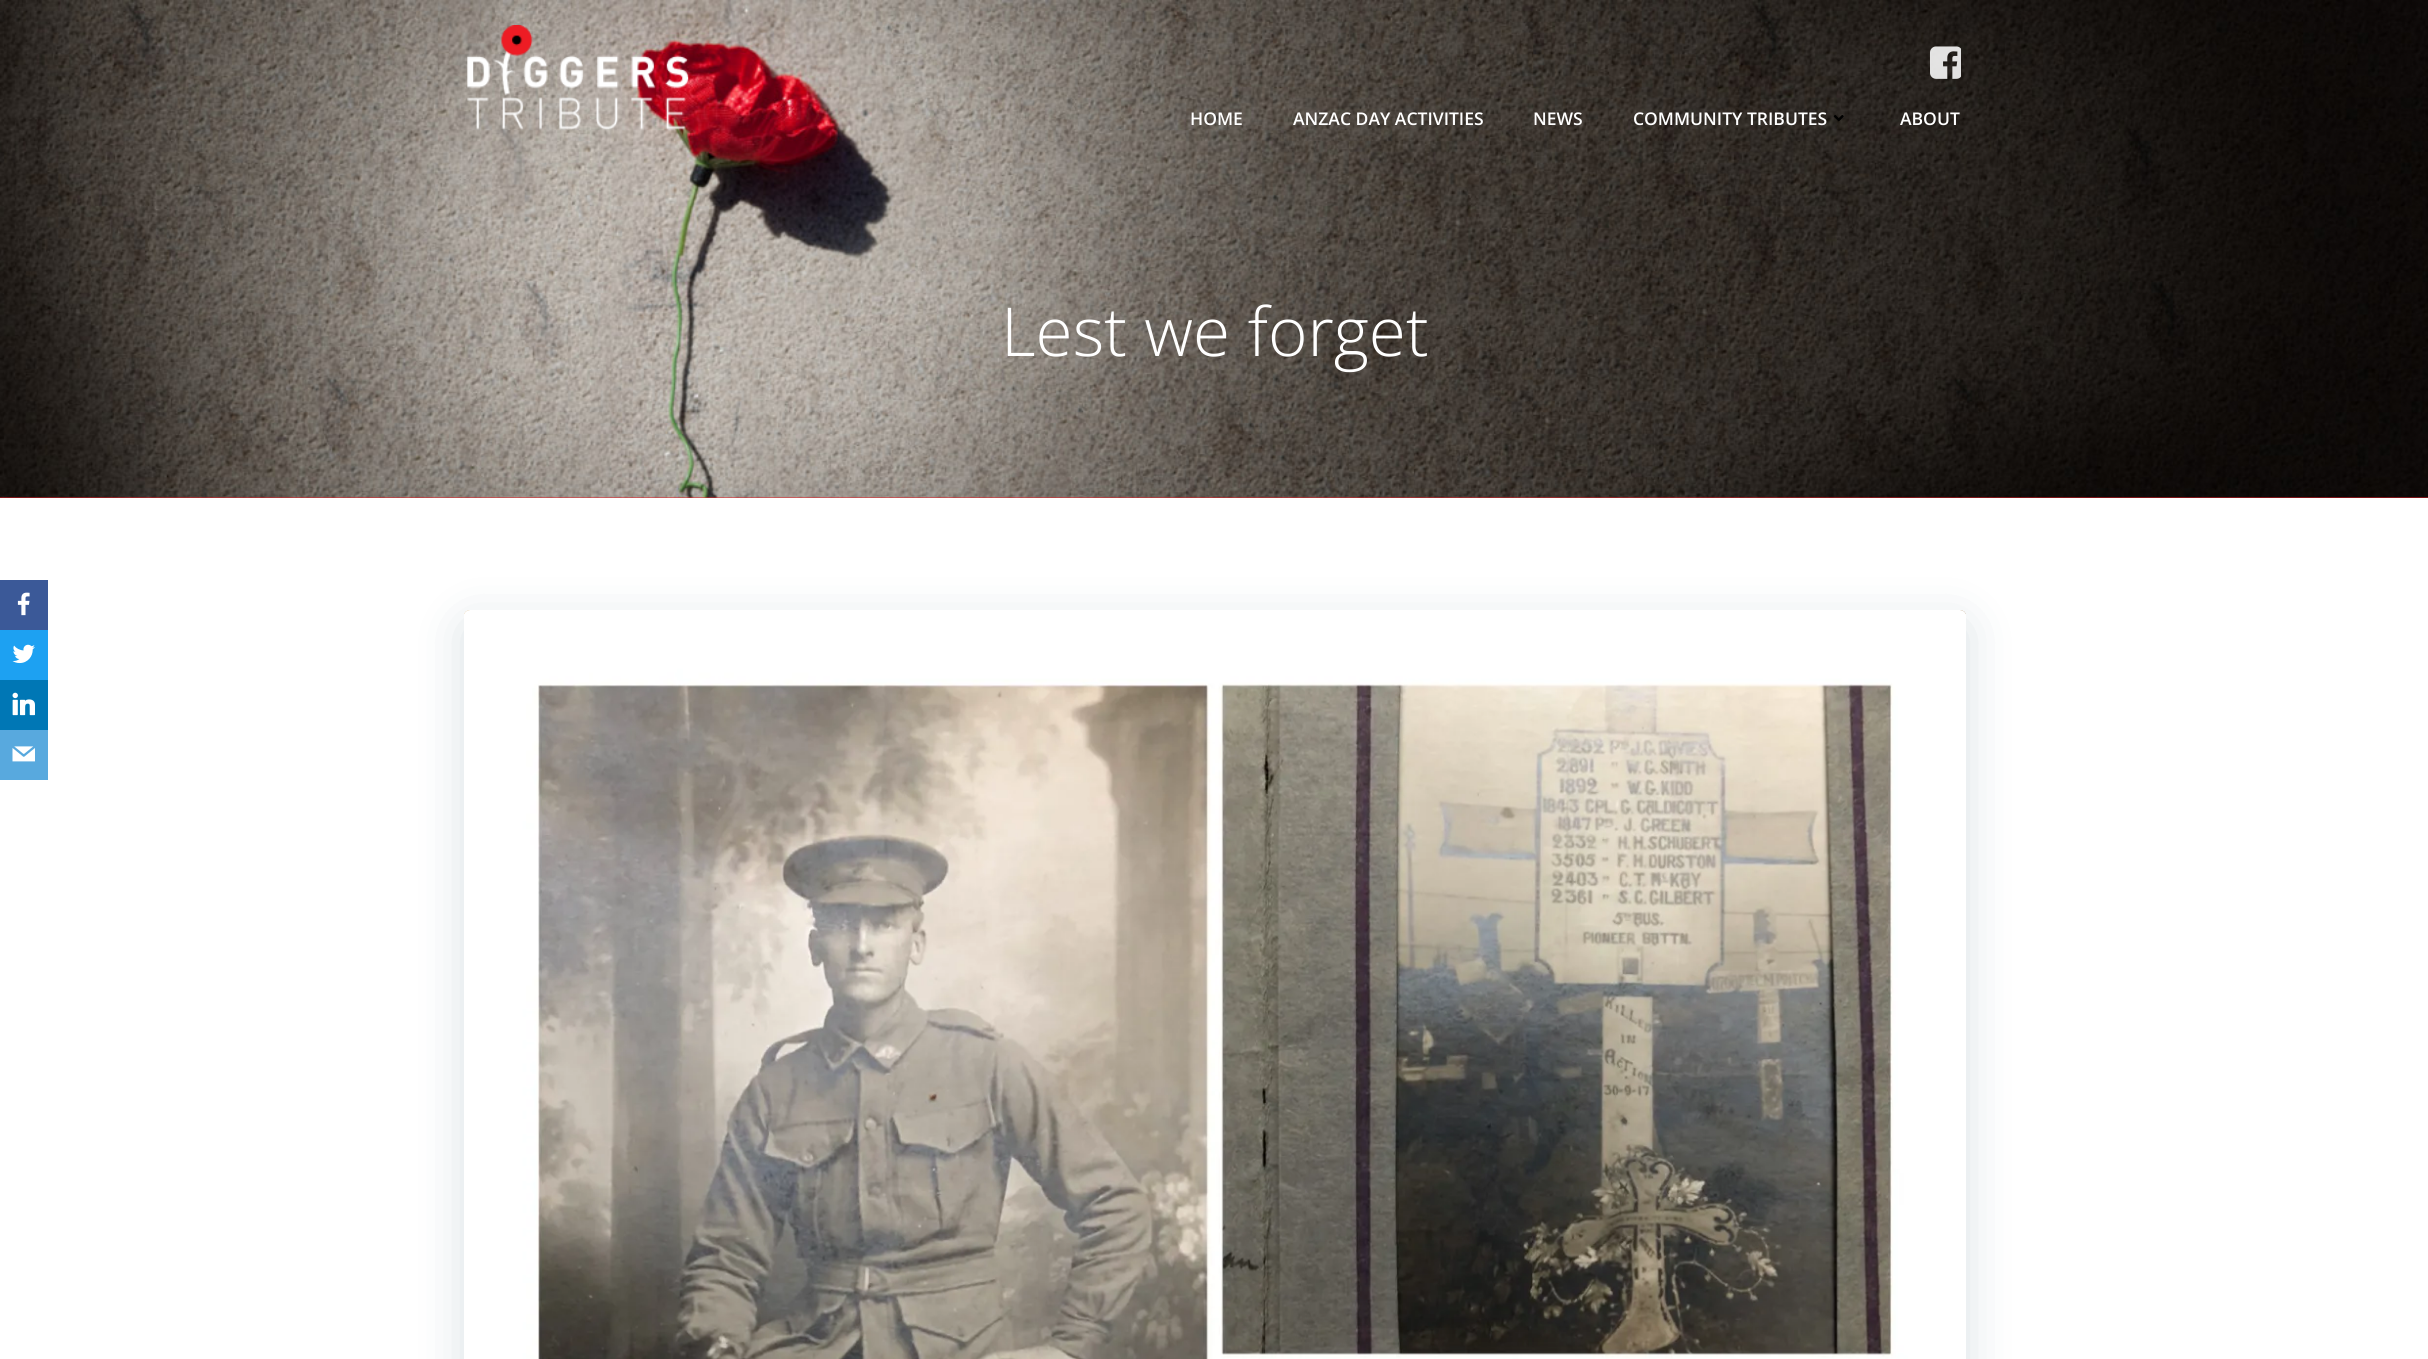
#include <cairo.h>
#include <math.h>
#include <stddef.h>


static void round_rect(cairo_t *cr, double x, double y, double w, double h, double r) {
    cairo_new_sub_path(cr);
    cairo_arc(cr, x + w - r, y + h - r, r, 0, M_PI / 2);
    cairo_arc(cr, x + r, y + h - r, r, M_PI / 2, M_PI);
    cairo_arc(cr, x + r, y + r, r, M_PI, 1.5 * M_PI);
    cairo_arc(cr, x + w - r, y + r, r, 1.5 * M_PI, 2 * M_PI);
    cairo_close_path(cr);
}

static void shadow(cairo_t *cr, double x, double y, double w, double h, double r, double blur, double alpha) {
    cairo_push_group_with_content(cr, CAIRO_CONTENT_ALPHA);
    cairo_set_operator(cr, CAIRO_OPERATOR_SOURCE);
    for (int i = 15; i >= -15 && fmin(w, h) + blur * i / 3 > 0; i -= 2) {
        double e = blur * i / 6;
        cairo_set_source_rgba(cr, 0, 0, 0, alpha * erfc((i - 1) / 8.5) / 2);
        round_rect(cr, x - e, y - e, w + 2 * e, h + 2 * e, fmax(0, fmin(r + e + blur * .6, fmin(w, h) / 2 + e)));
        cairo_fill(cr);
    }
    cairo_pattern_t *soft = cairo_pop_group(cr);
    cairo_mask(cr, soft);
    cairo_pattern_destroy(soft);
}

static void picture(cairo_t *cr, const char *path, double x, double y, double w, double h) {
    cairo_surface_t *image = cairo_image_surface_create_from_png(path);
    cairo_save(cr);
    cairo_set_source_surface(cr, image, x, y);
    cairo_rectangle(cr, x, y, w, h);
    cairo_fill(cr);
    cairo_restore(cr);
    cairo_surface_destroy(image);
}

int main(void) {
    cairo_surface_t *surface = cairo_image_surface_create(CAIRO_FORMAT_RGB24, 2428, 1359);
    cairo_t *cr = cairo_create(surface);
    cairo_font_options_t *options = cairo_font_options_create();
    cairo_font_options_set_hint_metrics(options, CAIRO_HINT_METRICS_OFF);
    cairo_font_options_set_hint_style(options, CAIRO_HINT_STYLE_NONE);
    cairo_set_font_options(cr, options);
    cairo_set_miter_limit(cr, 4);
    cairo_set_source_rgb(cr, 0.929, 0.11, 0.141);
    cairo_paint(cr);
    picture(cr, "img4.png", 0, 0, 2428, 498);
    picture(cr, "img1.png", 467, 25, 222, 106);
    picture(cr, "img2.png", 1930, 46, 31, 33);
    cairo_select_font_face(cr, "Open Sans SemiBold", CAIRO_FONT_SLANT_NORMAL, CAIRO_FONT_WEIGHT_NORMAL);
    cairo_set_font_size(cr, 17.5);
    cairo_set_source_rgb(cr, 1, 1, 1);
    cairo_move_to(cr, 1190, 125);
    cairo_show_text(cr, "HOME");
    cairo_move_to(cr, 1293, 125);
    cairo_show_text(cr, "ANZAC DAY ACTIVITIES");
    cairo_move_to(cr, 1533, 125);
    cairo_show_text(cr, "NEWS");
    cairo_move_to(cr, 1633, 125);
    cairo_show_text(cr, "COMMUNITY TRIBUTES");
    picture(cr, "img3.png", 1833, 115, 11, 7);
    cairo_move_to(cr, 1900, 125);
    cairo_show_text(cr, "ABOUT");
    cairo_select_font_face(cr, "Open Sans Light", CAIRO_FONT_SLANT_NORMAL, CAIRO_FONT_WEIGHT_NORMAL);
    cairo_set_font_size(cr, 67.5);
    cairo_move_to(cr, 1001, 356);
    cairo_show_text(cr, "Lest we forget");
    cairo_rectangle(cr, 0, 498, 2428, 861);
    cairo_fill(cr);
    cairo_set_source_rgb(cr, 0.004, 0.2, 0.29);
    shadow(cr, 464, 623, 1502, 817, 6, 25, 0.15);
    picture(cr, "img5.png", 464, 610, 1502, 5);
    picture(cr, "img6.png", 464, 610, 1502, 749);
    cairo_set_source_rgb(cr, 0.231, 0.349, 0.596);
    cairo_rectangle(cr, 0, 580, 48, 50);
    cairo_fill(cr);
    picture(cr, "img7.png", 17, 592, 13, 24);
    cairo_set_source_rgb(cr, 0.114, 0.631, 0.949);
    cairo_rectangle(cr, 0, 630, 48, 50);
    cairo_fill(cr);
    picture(cr, "img8.png", 12, 644, 23, 20);
    cairo_set_source_rgb(cr, 0, 0.467, 0.71);
    cairo_rectangle(cr, 0, 680, 48, 50);
    cairo_fill(cr);
    picture(cr, "img9.png", 12, 692, 23, 24);
    cairo_set_source_rgb(cr, 0.345, 0.663, 0.871);
    cairo_rectangle(cr, 0, 730, 48, 50);
    cairo_fill(cr);
    picture(cr, "img10.png", 12, 746, 23, 16);
    cairo_surface_write_to_png(surface, "page.png");
    cairo_font_options_destroy(options);
    cairo_destroy(cr);
    cairo_surface_destroy(surface);
    return 0;
}
